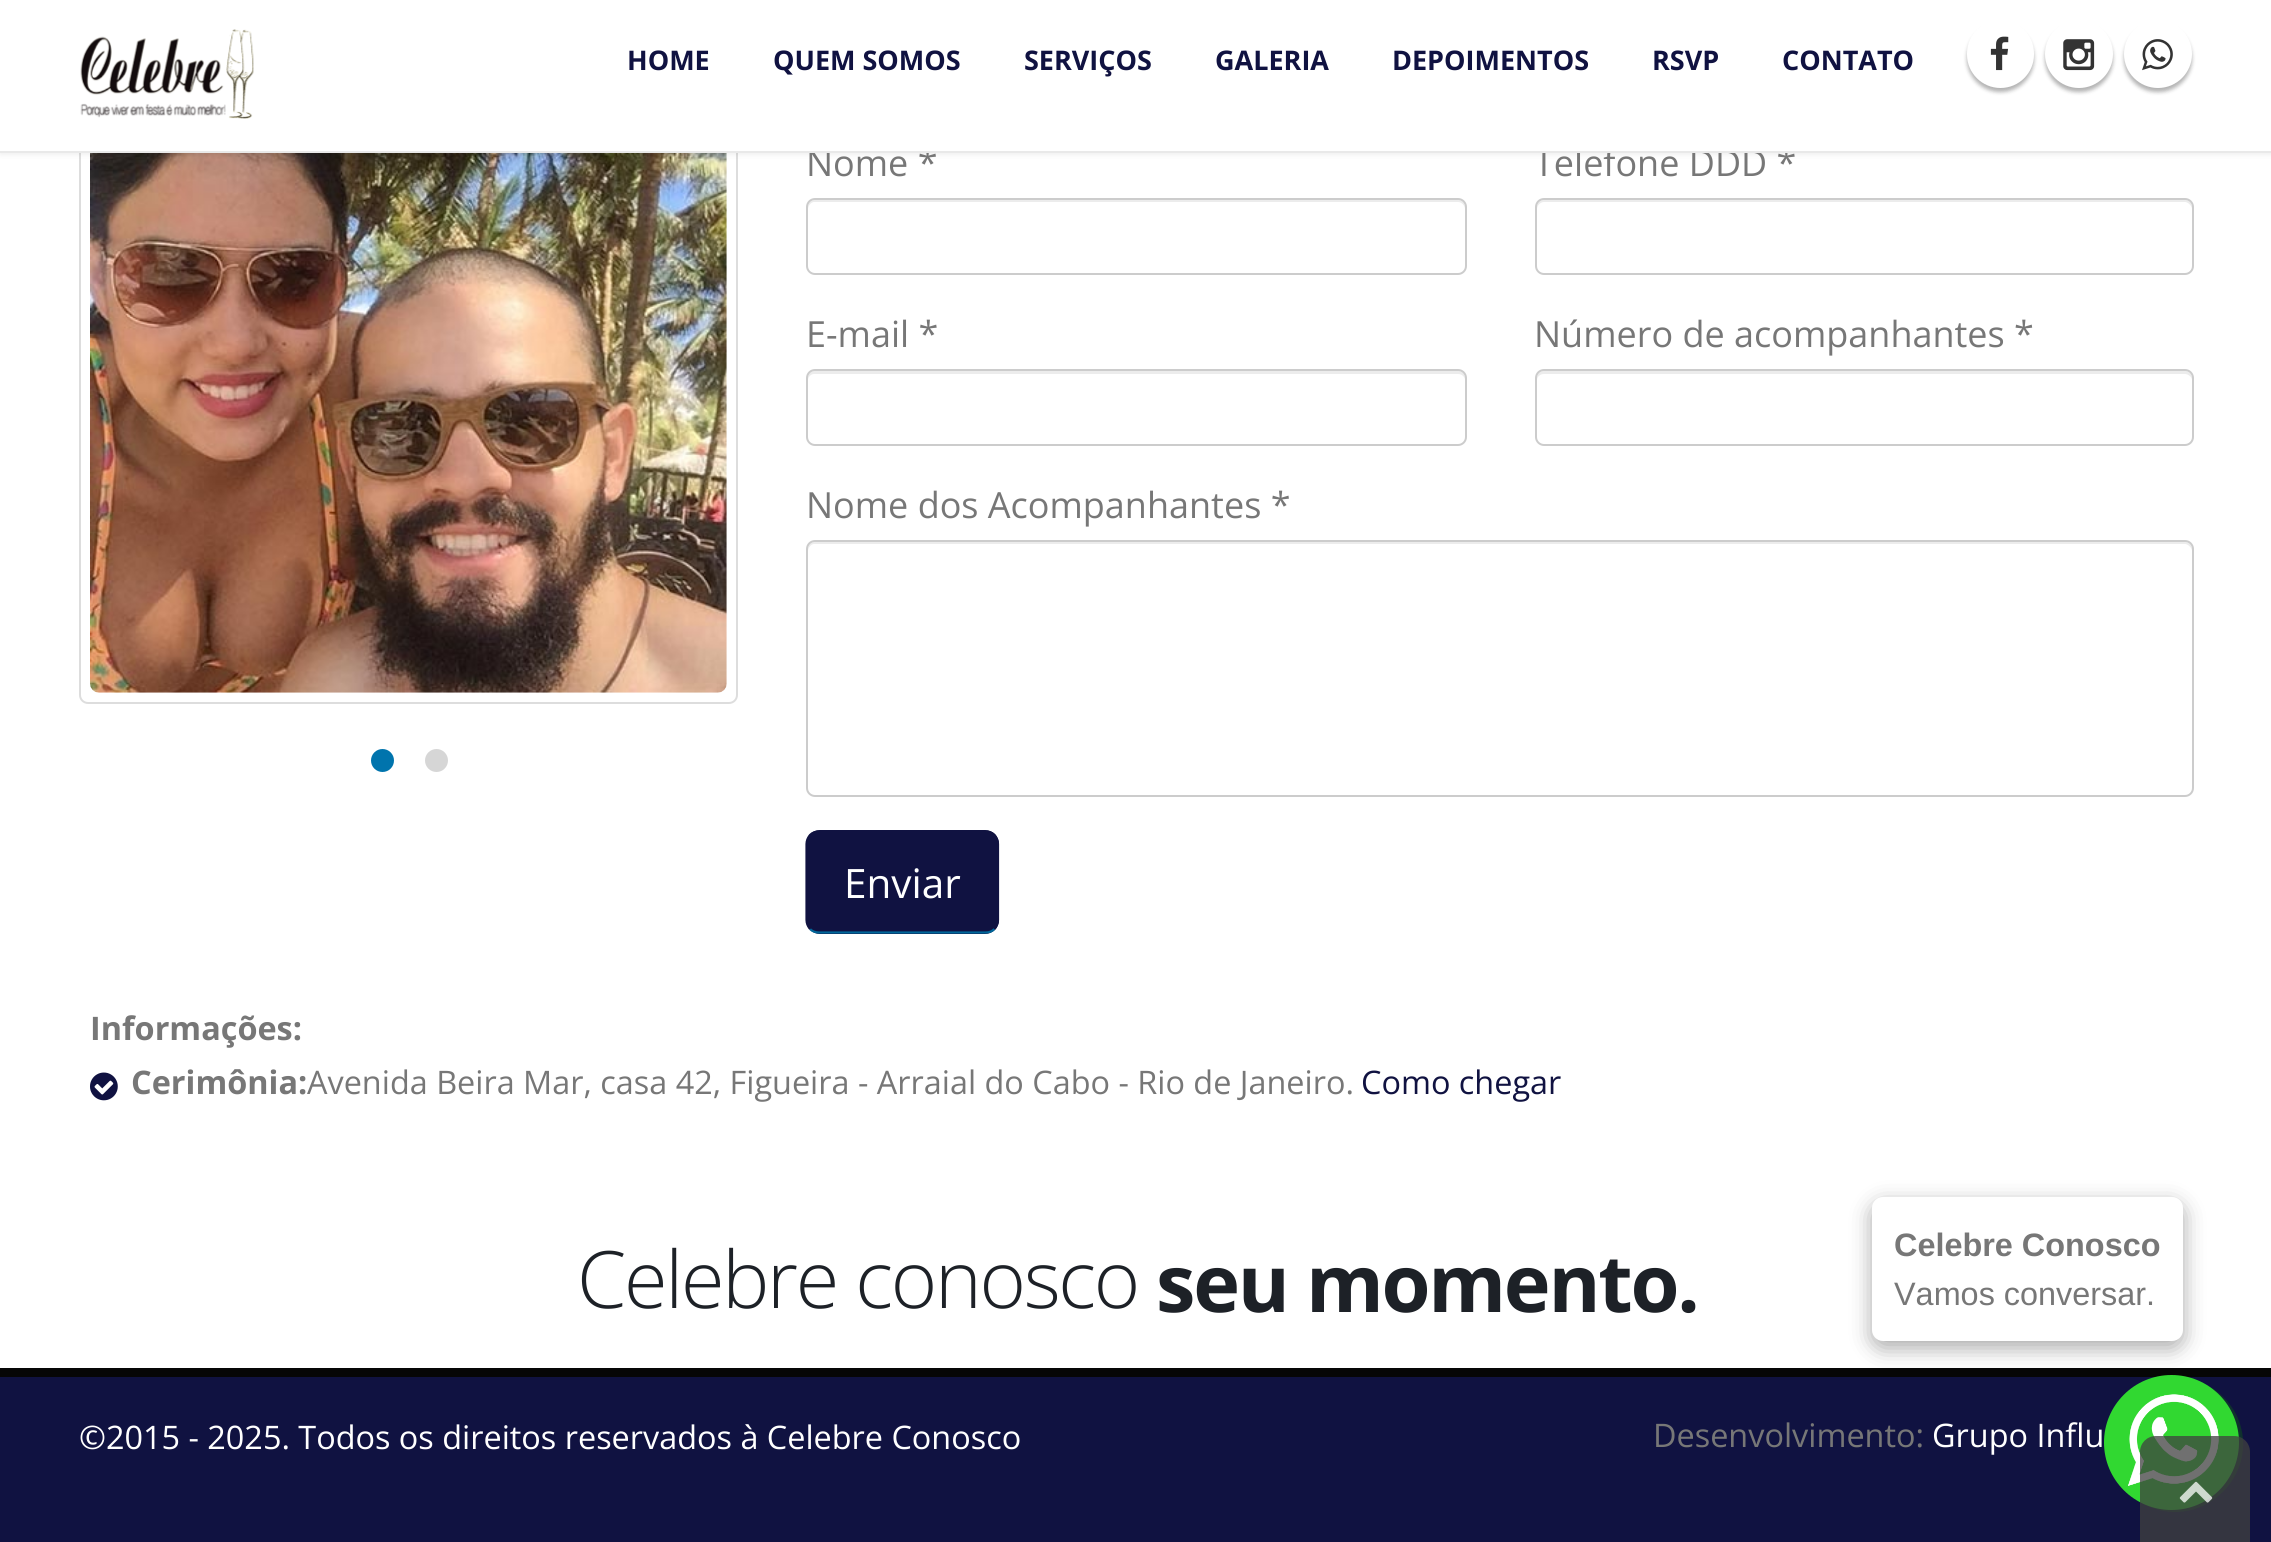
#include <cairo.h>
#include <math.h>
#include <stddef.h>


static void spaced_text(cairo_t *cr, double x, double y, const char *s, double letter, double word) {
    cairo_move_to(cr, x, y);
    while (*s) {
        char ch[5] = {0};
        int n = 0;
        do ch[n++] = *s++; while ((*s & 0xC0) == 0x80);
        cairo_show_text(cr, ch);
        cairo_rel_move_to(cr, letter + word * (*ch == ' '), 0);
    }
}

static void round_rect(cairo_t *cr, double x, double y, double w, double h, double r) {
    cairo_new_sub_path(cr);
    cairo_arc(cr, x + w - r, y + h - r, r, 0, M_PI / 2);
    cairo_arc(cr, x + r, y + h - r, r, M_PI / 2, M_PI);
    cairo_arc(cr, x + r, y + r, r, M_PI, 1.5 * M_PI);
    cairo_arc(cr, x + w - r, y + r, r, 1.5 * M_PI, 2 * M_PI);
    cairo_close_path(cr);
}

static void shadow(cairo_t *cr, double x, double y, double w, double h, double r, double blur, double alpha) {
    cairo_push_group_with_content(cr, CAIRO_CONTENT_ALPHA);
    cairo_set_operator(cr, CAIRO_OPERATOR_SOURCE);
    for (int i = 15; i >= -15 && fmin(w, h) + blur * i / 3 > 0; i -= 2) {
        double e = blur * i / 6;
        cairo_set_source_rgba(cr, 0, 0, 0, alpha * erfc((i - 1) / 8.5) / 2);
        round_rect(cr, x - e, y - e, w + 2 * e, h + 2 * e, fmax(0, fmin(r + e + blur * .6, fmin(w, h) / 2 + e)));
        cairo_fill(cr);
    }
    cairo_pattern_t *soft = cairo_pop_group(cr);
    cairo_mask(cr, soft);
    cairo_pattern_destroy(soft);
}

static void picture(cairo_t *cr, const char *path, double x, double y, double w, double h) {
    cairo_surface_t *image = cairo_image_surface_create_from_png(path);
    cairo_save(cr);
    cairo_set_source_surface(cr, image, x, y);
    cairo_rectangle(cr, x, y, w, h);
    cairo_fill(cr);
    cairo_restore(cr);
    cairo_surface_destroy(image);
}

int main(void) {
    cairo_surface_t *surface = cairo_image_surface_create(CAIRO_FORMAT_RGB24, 2271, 1542);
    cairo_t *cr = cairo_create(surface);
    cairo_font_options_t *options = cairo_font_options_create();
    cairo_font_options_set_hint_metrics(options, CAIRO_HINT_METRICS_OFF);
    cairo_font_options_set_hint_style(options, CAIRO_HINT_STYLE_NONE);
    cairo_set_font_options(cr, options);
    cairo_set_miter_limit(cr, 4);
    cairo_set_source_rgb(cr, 1, 1, 1);
    cairo_paint(cr);
    round_rect(cr, 80, 46, 657, 657, 8);
    cairo_set_source_rgb(cr, 0.867, 0.867, 0.867);
    cairo_stroke(cr);
    picture(cr, "img5.png", 90, 153, 637, 540);
    cairo_set_source_rgb(cr, 0, 0, 0);
    shadow(cr, 0, -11, 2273, 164, 0, 3.5, 0.1);
    cairo_select_font_face(cr, "Open Sans", CAIRO_FONT_SLANT_NORMAL, CAIRO_FONT_WEIGHT_NORMAL);
    cairo_set_font_size(cr, 36);
    cairo_set_source_rgb(cr, 0.467, 0.467, 0.467);
    cairo_move_to(cr, 806, 176);
    cairo_show_text(cr, "Nome *");
    cairo_move_to(cr, 1534, 176);
    cairo_show_text(cr, "Telefone DDD *");
    cairo_set_source_rgb(cr, 1, 1, 1);
    cairo_rectangle(cr, 0, 0, 2271, 151);
    cairo_fill(cr);
    cairo_set_source_rgb(cr, 0.914, 0.914, 0.914);
    cairo_rectangle(cr, 0, 151, 2271, 2);
    cairo_fill(cr);
    picture(cr, "img1.png", 80, 29, 174, 90);
    cairo_select_font_face(cr, "Open Sans", CAIRO_FONT_SLANT_NORMAL, CAIRO_FONT_WEIGHT_BOLD);
    cairo_set_font_size(cr, 27);
    cairo_set_source_rgb(cr, 0.063, 0.071, 0.255);
    cairo_move_to(cr, 627, 70);
    cairo_show_text(cr, "HOME");
    cairo_move_to(cr, 773, 70);
    cairo_show_text(cr, "QUEM SOMOS");
    cairo_move_to(cr, 1024, 70);
    cairo_show_text(cr, "SERVIÇOS");
    cairo_move_to(cr, 1215, 70);
    cairo_show_text(cr, "GALERIA");
    cairo_move_to(cr, 1392, 70);
    cairo_show_text(cr, "DEPOIMENTOS");
    cairo_move_to(cr, 1652, 70);
    cairo_show_text(cr, "RSVP");
    cairo_move_to(cr, 1782, 70);
    cairo_show_text(cr, "CONTATO");
    cairo_set_source_rgb(cr, 0, 0, 0);
    shadow(cr, 1967, 25, 67, 67, 33.5, 2, 0.3);
    cairo_set_source_rgb(cr, 1, 1, 1);
    round_rect(cr, 1967, 20, 67, 68, 33.5);
    cairo_fill(cr);
    picture(cr, "img2.png", 1990, 36, 19, 35);
    cairo_set_source_rgb(cr, 0, 0, 0);
    shadow(cr, 2045, 25, 68, 67, 33.5, 2, 0.3);
    cairo_set_source_rgb(cr, 1, 1, 1);
    cairo_arc(cr, 2079, 54, 34, 0, 2 * M_PI);
    cairo_fill(cr);
    picture(cr, "img3.png", 2063, 39, 32, 32);
    cairo_set_source_rgb(cr, 0, 0, 0);
    shadow(cr, 2124, 25, 68, 67, 33.5, 2, 0.3);
    cairo_set_source_rgb(cr, 1, 1, 1);
    cairo_arc(cr, 2158, 54, 34, 0, 2 * M_PI);
    cairo_fill(cr);
    picture(cr, "img4.png", 2142, 39, 31, 32);
    cairo_set_source_rgb(cr, 0, 0.455, 0.678);
    cairo_arc(cr, 382.5, 760.5, 11.5, 0, 2 * M_PI);
    cairo_fill(cr);
    cairo_set_source_rgb(cr, 0.839, 0.839, 0.839);
    cairo_arc(cr, 436.5, 760.5, 11.5, 0, 2 * M_PI);
    cairo_fill(cr);
    cairo_set_source_rgb(cr, 0.925, 0.925, 0.925);
    cairo_new_path(cr);
    cairo_move_to(cr, 814, 202);
    cairo_line_to(cr, 1458, 202);
    cairo_curve_to(cr, 1462, 202, 1465, 206, 1465, 209);
    cairo_line_to(cr, 1465, 207);
    cairo_curve_to(cr, 1465, 203, 1462, 200, 1458, 200);
    cairo_line_to(cr, 815, 200);
    cairo_curve_to(cr, 811, 200, 808, 203, 808, 207);
    cairo_line_to(cr, 808, 209);
    cairo_curve_to(cr, 808, 206, 811, 202, 814, 202);
    cairo_close_path(cr);
    cairo_fill(cr);
    round_rect(cr, 807, 199, 659, 75, 8);
    cairo_set_source_rgb(cr, 0.8, 0.8, 0.8);
    cairo_stroke(cr);
    cairo_set_source_rgb(cr, 0.925, 0.925, 0.925);
    cairo_new_path(cr);
    cairo_move_to(cr, 1544, 202);
    cairo_line_to(cr, 2185, 202);
    cairo_curve_to(cr, 2188, 202, 2192, 206, 2192, 209);
    cairo_line_to(cr, 2192, 207);
    cairo_curve_to(cr, 2192, 203, 2189, 200, 2185, 200);
    cairo_line_to(cr, 1544, 200);
    cairo_curve_to(cr, 1540, 200, 1537, 203, 1537, 207);
    cairo_line_to(cr, 1537, 209);
    cairo_curve_to(cr, 1537, 206, 1540, 202, 1544, 202);
    cairo_close_path(cr);
    cairo_fill(cr);
    round_rect(cr, 1536, 199, 657, 75, 8);
    cairo_set_source_rgb(cr, 0.8, 0.8, 0.8);
    cairo_stroke(cr);
    cairo_select_font_face(cr, "Open Sans", CAIRO_FONT_SLANT_NORMAL, CAIRO_FONT_WEIGHT_NORMAL);
    cairo_set_font_size(cr, 36);
    cairo_set_source_rgb(cr, 0.467, 0.467, 0.467);
    cairo_move_to(cr, 806, 347);
    cairo_show_text(cr, "E-mail *");
    cairo_set_source_rgb(cr, 0.925, 0.925, 0.925);
    cairo_new_path(cr);
    cairo_move_to(cr, 814, 374);
    cairo_line_to(cr, 1458, 374);
    cairo_curve_to(cr, 1462, 374, 1465, 377, 1465, 380);
    cairo_line_to(cr, 1465, 378);
    cairo_curve_to(cr, 1465, 374, 1462, 371, 1458, 371);
    cairo_line_to(cr, 815, 371);
    cairo_curve_to(cr, 811, 371, 808, 374, 808, 378);
    cairo_line_to(cr, 808, 380);
    cairo_curve_to(cr, 808, 377, 811, 374, 814, 374);
    cairo_close_path(cr);
    cairo_fill(cr);
    round_rect(cr, 807, 370, 659, 75, 8);
    cairo_set_source_rgb(cr, 0.8, 0.8, 0.8);
    cairo_stroke(cr);
    cairo_set_source_rgb(cr, 0.467, 0.467, 0.467);
    cairo_move_to(cr, 1534, 347);
    cairo_show_text(cr, "Número de acompanhantes *");
    cairo_set_source_rgb(cr, 0.925, 0.925, 0.925);
    cairo_new_path(cr);
    cairo_move_to(cr, 1544, 374);
    cairo_line_to(cr, 2185, 374);
    cairo_curve_to(cr, 2188, 374, 2192, 377, 2192, 380);
    cairo_line_to(cr, 2192, 378);
    cairo_curve_to(cr, 2192, 374, 2189, 371, 2185, 371);
    cairo_line_to(cr, 1544, 371);
    cairo_curve_to(cr, 1540, 371, 1537, 374, 1537, 378);
    cairo_line_to(cr, 1537, 380);
    cairo_curve_to(cr, 1537, 377, 1540, 374, 1544, 374);
    cairo_close_path(cr);
    cairo_fill(cr);
    round_rect(cr, 1536, 370, 657, 75, 8);
    cairo_set_source_rgb(cr, 0.8, 0.8, 0.8);
    cairo_stroke(cr);
    cairo_set_source_rgb(cr, 0.467, 0.467, 0.467);
    cairo_move_to(cr, 806, 518);
    cairo_show_text(cr, "Nome dos Acompanhantes *");
    cairo_set_source_rgb(cr, 0.925, 0.925, 0.925);
    cairo_new_path(cr);
    cairo_move_to(cr, 814, 544);
    cairo_line_to(cr, 2185, 544);
    cairo_curve_to(cr, 2188, 544, 2192, 548, 2192, 551);
    cairo_line_to(cr, 2192, 549);
    cairo_curve_to(cr, 2192, 545, 2189, 542, 2185, 542);
    cairo_line_to(cr, 815, 542);
    cairo_curve_to(cr, 811, 542, 808, 545, 808, 549);
    cairo_line_to(cr, 808, 551);
    cairo_curve_to(cr, 808, 548, 811, 544, 814, 544);
    cairo_close_path(cr);
    cairo_fill(cr);
    round_rect(cr, 807, 541, 1386, 255, 8);
    cairo_set_source_rgb(cr, 0.8, 0.8, 0.8);
    cairo_stroke(cr);
    cairo_set_source_rgb(cr, 0.063, 0.071, 0.255);
    round_rect(cr, 806, 830, 193, 104, 14);
    cairo_fill(cr);
    cairo_new_path(cr);
    cairo_move_to(cr, 994.5, 929);
    cairo_curve_to(cr, 992, 931.5, 989, 932.5, 985.5, 932.5);
    cairo_line_to(cr, 819, 932.5);
    cairo_curve_to(cr, 815.5, 932.5, 812.5, 931.5, 810, 929);
    cairo_set_source_rgb(cr, 0, 0.4, 0.6);
    cairo_set_line_width(cr, 2.2);
    cairo_stroke(cr);
    cairo_new_path(cr);
    cairo_move_to(cr, 810, 929);
    cairo_curve_to(cr, 808, 926.5, 806.5, 923.5, 806.5, 920);
    cairo_line_to(cr, 806.5, 844);
    cairo_curve_to(cr, 806.5, 840.5, 808, 837.5, 810, 835);
    cairo_curve_to(cr, 812.5, 832.5, 815.5, 831.5, 819, 831.5);
    cairo_line_to(cr, 985.5, 831.5);
    cairo_curve_to(cr, 989, 831.5, 992, 832.5, 994.5, 835);
    cairo_curve_to(cr, 996.5, 837.5, 998, 840.5, 998, 844);
    cairo_line_to(cr, 998, 920);
    cairo_curve_to(cr, 998, 923.5, 996.5, 926.5, 994.5, 929);
    cairo_set_source_rgb(cr, 0.063, 0.071, 0.255);
    cairo_stroke(cr);
    cairo_set_font_size(cr, 40.5);
    cairo_set_source_rgb(cr, 1, 1, 1);
    cairo_move_to(cr, 844, 898);
    cairo_show_text(cr, "Enviar");
    cairo_select_font_face(cr, "Open Sans", CAIRO_FONT_SLANT_NORMAL, CAIRO_FONT_WEIGHT_BOLD);
    cairo_set_font_size(cr, 32.4);
    cairo_set_source_rgb(cr, 0.467, 0.467, 0.467);
    cairo_move_to(cr, 90, 1040);
    cairo_show_text(cr, "Informações:");
    picture(cr, "img6.png", 90, 1072, 28, 29);
    cairo_move_to(cr, 131, 1094);
    cairo_show_text(cr, "Cerimônia:");
    cairo_select_font_face(cr, "Open Sans", CAIRO_FONT_SLANT_NORMAL, CAIRO_FONT_WEIGHT_NORMAL);
    cairo_move_to(cr, 307, 1094);
    cairo_show_text(cr, "Avenida Beira Mar, casa 42, Figueira - Arraial do Cabo - Rio de Janeiro.");
    cairo_set_source_rgb(cr, 0.063, 0.071, 0.255);
    cairo_move_to(cr, 1361, 1094);
    cairo_show_text(cr, "Como chegar");
    cairo_select_font_face(cr, "Open Sans Light", CAIRO_FONT_SLANT_NORMAL, CAIRO_FONT_WEIGHT_NORMAL);
    cairo_set_font_size(cr, 79.25);
    cairo_set_source_rgb(cr, 0.114, 0.129, 0.153);
    spaced_text(cr, 577, 1308, "Celebre conosco", -2.25, 0);
    cairo_select_font_face(cr, "Open Sans", CAIRO_FONT_SLANT_NORMAL, CAIRO_FONT_WEIGHT_BOLD);
    spaced_text(cr, 1156, 1312, "seu momento.", -2.25, 0);
    cairo_set_source_rgb(cr, 0.063, 0.071, 0.255);
    cairo_rectangle(cr, 0, 1377, 2271, 165);
    cairo_fill(cr);
    cairo_set_source_rgb(cr, 0.024, 0.024, 0.024);
    cairo_rectangle(cr, 0, 1368, 2271, 9);
    cairo_fill(cr);
    cairo_set_source_rgb(cr, 0, 0, 0);
    shadow(cr, 1872, 1204, 311, 144, 11, 11, 0.34);
    cairo_set_source_rgb(cr, 1, 1, 1);
    round_rect(cr, 1872, 1197, 311, 144, 11);
    cairo_fill(cr);
    cairo_select_font_face(cr, "Liberation Sans", CAIRO_FONT_SLANT_NORMAL, CAIRO_FONT_WEIGHT_BOLD);
    cairo_set_font_size(cr, 32.4);
    cairo_set_source_rgb(cr, 0.467, 0.467, 0.467);
    cairo_move_to(cr, 1894, 1256);
    cairo_show_text(cr, "Celebre Conosco");
    cairo_select_font_face(cr, "Liberation Sans", CAIRO_FONT_SLANT_NORMAL, CAIRO_FONT_WEIGHT_NORMAL);
    cairo_move_to(cr, 1894, 1305);
    cairo_show_text(cr, "Vamos conversar.");
    cairo_set_source_rgb(cr, 0.059, 0.196, 0.176);
    cairo_new_path(cr);
    cairo_move_to(cr, 2142, 1503);
    cairo_curve_to(cr, 2197, 1535, 2264, 1477, 2237, 1416);
    cairo_curve_to(cr, 2230, 1402, 2219, 1391, 2205, 1384);
    cairo_curve_to(cr, 2258, 1414, 2246, 1496, 2185, 1508);
    cairo_curve_to(cr, 2170, 1511, 2155, 1509, 2142, 1503);
    cairo_close_path(cr);
    cairo_fill(cr);
    cairo_set_source_rgb(cr, 0.192, 0.847, 0.192);
    cairo_arc(cr, 2171.5, 1442.5, 67.5, 0, 2 * M_PI);
    cairo_fill(cr);
    picture(cr, "img7.png", 2128, 1394, 91, 92);
    cairo_select_font_face(cr, "Open Sans", CAIRO_FONT_SLANT_NORMAL, CAIRO_FONT_WEIGHT_NORMAL);
    cairo_set_source_rgb(cr, 1, 1, 1);
    cairo_move_to(cr, 79, 1449);
    cairo_show_text(cr, "©2015 - 2025. Todos os direitos reservados à Celebre Conosco");
    cairo_set_source_rgb(cr, 0.467, 0.467, 0.467);
    cairo_move_to(cr, 1653, 1447);
    cairo_show_text(cr, "Desenvolvimento:");
    cairo_set_source_rgb(cr, 1, 1, 1);
    cairo_move_to(cr, 1932, 1447);
    cairo_show_text(cr, "Grupo Influ");
    cairo_set_source_rgba(cr, 0.251, 0.251, 0.251, 0.75);
    cairo_new_path(cr);
    cairo_move_to(cr, 2156, 1436);
    cairo_line_to(cr, 2234, 1436);
    cairo_curve_to(cr, 2243, 1436, 2250, 1443, 2250, 1452);
    cairo_line_to(cr, 2250, 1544);
    cairo_line_to(cr, 2140, 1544);
    cairo_line_to(cr, 2140, 1452);
    cairo_curve_to(cr, 2140, 1443, 2147, 1436, 2156, 1436);
    cairo_close_path(cr);
    cairo_fill(cr);
    picture(cr, "img8.png", 2179, 1481, 34, 22);
    cairo_surface_write_to_png(surface, "page.png");
    cairo_font_options_destroy(options);
    cairo_destroy(cr);
    cairo_surface_destroy(surface);
    return 0;
}
